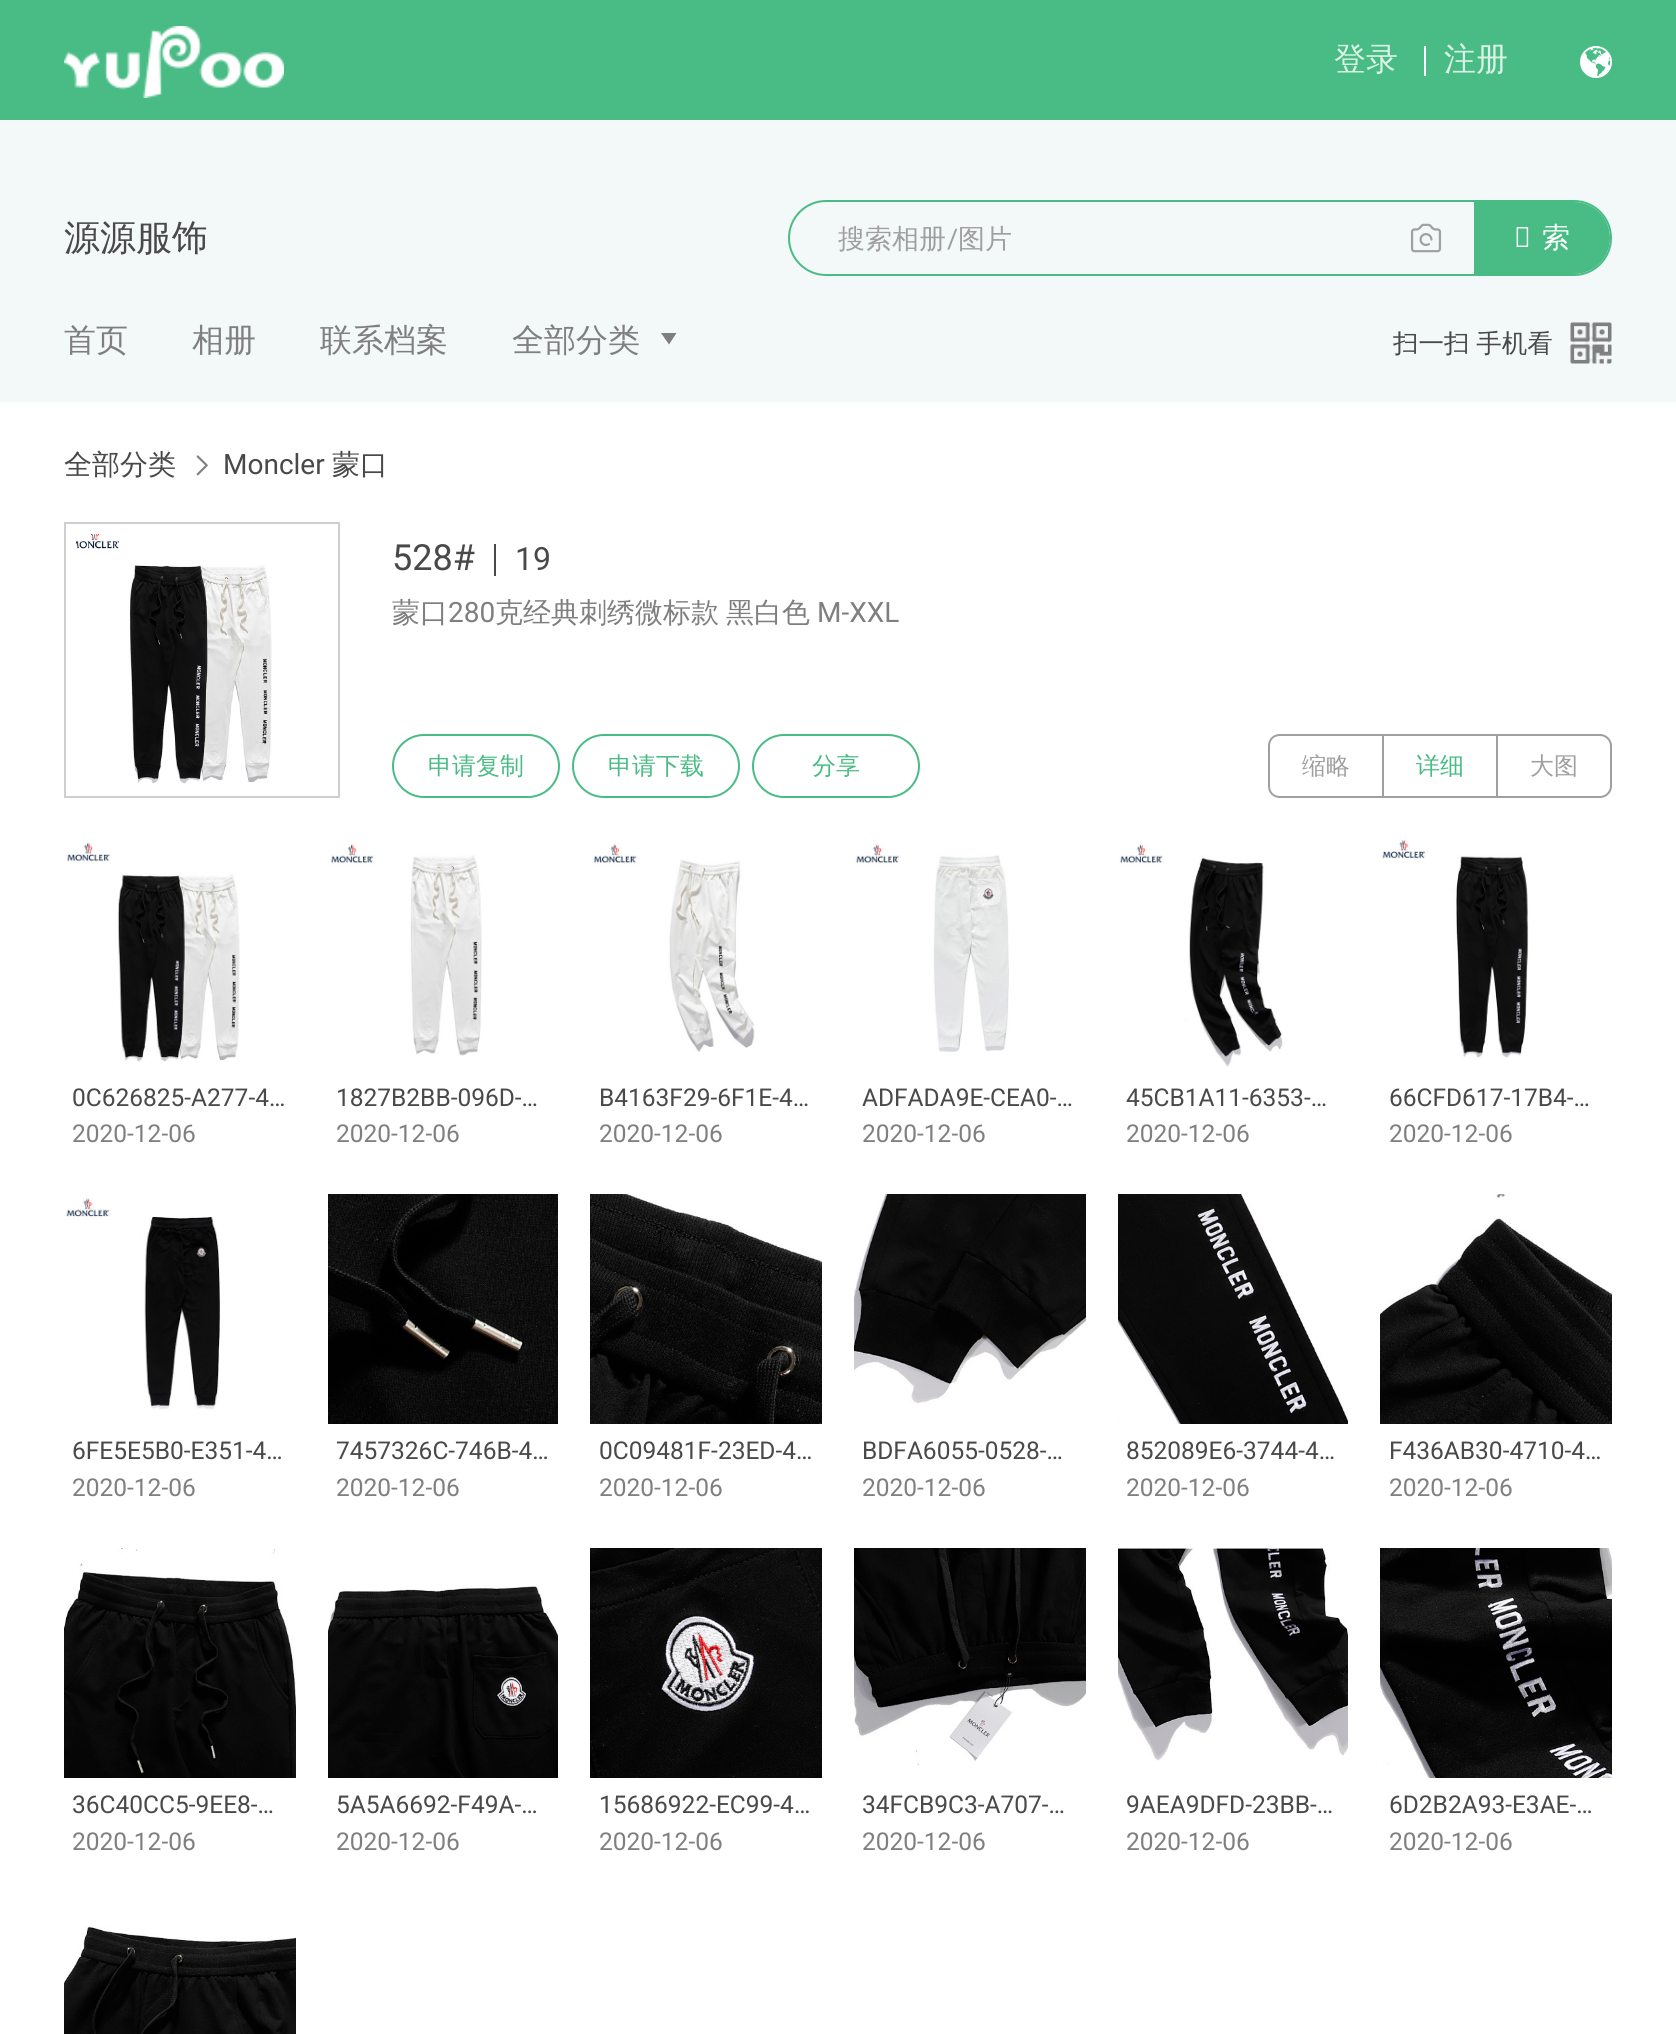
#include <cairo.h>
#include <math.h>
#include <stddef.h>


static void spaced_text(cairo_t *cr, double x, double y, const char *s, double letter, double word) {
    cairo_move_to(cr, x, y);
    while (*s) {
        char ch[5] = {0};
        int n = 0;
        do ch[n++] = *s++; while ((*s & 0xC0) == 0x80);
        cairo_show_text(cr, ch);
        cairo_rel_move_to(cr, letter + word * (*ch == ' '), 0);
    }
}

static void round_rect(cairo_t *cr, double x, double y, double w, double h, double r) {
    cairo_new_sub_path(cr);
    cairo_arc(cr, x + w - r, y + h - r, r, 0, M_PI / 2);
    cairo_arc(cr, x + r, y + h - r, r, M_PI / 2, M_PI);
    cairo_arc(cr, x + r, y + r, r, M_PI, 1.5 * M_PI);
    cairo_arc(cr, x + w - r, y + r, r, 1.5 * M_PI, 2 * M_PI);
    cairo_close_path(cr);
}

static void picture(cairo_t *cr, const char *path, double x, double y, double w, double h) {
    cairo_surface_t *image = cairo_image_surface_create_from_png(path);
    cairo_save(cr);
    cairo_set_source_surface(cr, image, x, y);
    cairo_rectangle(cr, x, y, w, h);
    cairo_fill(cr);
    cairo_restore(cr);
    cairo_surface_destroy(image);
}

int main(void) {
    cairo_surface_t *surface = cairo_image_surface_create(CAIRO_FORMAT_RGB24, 1676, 2034);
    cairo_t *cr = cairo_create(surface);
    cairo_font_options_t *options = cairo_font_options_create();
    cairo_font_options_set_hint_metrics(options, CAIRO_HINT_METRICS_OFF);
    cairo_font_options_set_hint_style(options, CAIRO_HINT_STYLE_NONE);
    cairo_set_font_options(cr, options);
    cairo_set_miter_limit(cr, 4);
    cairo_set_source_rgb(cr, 1, 1, 1);
    cairo_paint(cr);
    cairo_set_source_rgb(cr, 0.286, 0.737, 0.522);
    cairo_rectangle(cr, 0, 0, 1676, 120);
    cairo_fill(cr);
    picture(cr, "img1.png", 64, 26, 220, 72);
    cairo_select_font_face(cr, "WenQuanYi Zen Hei Medium", CAIRO_FONT_SLANT_NORMAL, CAIRO_FONT_WEIGHT_NORMAL);
    cairo_set_font_size(cr, 32);
    cairo_set_source_rgb(cr, 0.859, 0.949, 0.906);
    cairo_move_to(cr, 1334, 70);
    cairo_show_text(cr, "登录");
    cairo_set_source_rgb(cr, 1, 1, 1);
    cairo_rectangle(cr, 1424, 46, 2, 30);
    cairo_fill(cr);
    cairo_set_source_rgb(cr, 0.859, 0.949, 0.906);
    cairo_move_to(cr, 1444, 70);
    cairo_show_text(cr, "注册");
    picture(cr, "img2.png", 1580, 46, 32, 32);
    cairo_set_source_rgb(cr, 0.953, 0.969, 0.969);
    cairo_rectangle(cr, 0, 120, 1676, 282);
    cairo_fill(cr);
    cairo_set_font_size(cr, 36);
    cairo_set_source_rgb(cr, 0.286, 0.286, 0.286);
    cairo_move_to(cr, 64, 250);
    cairo_show_text(cr, "源源服饰");
    round_rect(cr, 789, 201, 822, 74, 37);
    cairo_set_source_rgb(cr, 0.286, 0.737, 0.522);
    cairo_stroke(cr);
    cairo_set_font_size(cr, 27);
    cairo_set_source_rgb(cr, 0.624, 0.624, 0.624);
    cairo_move_to(cr, 838, 248);
    cairo_show_text(cr, "搜索相册");
    cairo_select_font_face(cr, "Roboto", CAIRO_FONT_SLANT_NORMAL, CAIRO_FONT_WEIGHT_NORMAL);
    cairo_move_to(cr, 947, 248);
    cairo_show_text(cr, "/");
    cairo_select_font_face(cr, "WenQuanYi Zen Hei Medium", CAIRO_FONT_SLANT_NORMAL, CAIRO_FONT_WEIGHT_NORMAL);
    cairo_move_to(cr, 958, 248);
    cairo_show_text(cr, "图片");
    picture(cr, "img3.png", 1410, 223, 32, 30);
    cairo_set_source_rgb(cr, 0.286, 0.737, 0.522);
    cairo_new_path(cr);
    cairo_move_to(cr, 1475, 203);
    cairo_line_to(cr, 1574, 203);
    cairo_curve_to(cr, 1593.5, 203, 1609, 218.5, 1609, 238);
    cairo_curve_to(cr, 1609, 257.5, 1593.5, 273, 1574, 273);
    cairo_line_to(cr, 1475, 273);
    cairo_close_path(cr);
    cairo_fill_preserve(cr);
    cairo_stroke(cr);
    cairo_select_font_face(cr, "Noto Sans", CAIRO_FONT_SLANT_NORMAL, CAIRO_FONT_WEIGHT_NORMAL);
    cairo_set_font_size(cr, 28);
    cairo_set_source_rgb(cr, 1, 1, 1);
    cairo_move_to(cr, 1514, 247);
    cairo_show_text(cr, "搜");
    cairo_select_font_face(cr, "WenQuanYi Zen Hei Medium", CAIRO_FONT_SLANT_NORMAL, CAIRO_FONT_WEIGHT_NORMAL);
    cairo_move_to(cr, 1542, 247);
    cairo_show_text(cr, "索");
    cairo_set_font_size(cr, 32);
    cairo_set_source_rgb(cr, 0.498, 0.498, 0.498);
    cairo_move_to(cr, 64, 351);
    cairo_show_text(cr, "首页");
    cairo_move_to(cr, 192, 351);
    cairo_show_text(cr, "相册");
    cairo_move_to(cr, 320, 351);
    cairo_show_text(cr, "联系档案");
    cairo_move_to(cr, 512, 351);
    cairo_show_text(cr, "全部分类");
    cairo_new_path(cr);
    cairo_move_to(cr, 669, 344.5);
    cairo_line_to(cr, 661, 333);
    cairo_line_to(cr, 676.5, 333);
    cairo_close_path(cr);
    cairo_fill(cr);
    cairo_set_font_size(cr, 25.5);
    cairo_set_source_rgb(cr, 0.286, 0.286, 0.286);
    spaced_text(cr, 1393, 352, "扫一扫 手机看", 0, -1);
    picture(cr, "img4.png", 1570, 322, 42, 42);
    cairo_set_font_size(cr, 28);
    cairo_move_to(cr, 64, 474);
    cairo_show_text(cr, "全部分类");
    picture(cr, "img5.png", 196, 455, 12, 21);
    cairo_select_font_face(cr, "Roboto", CAIRO_FONT_SLANT_NORMAL, CAIRO_FONT_WEIGHT_NORMAL);
    cairo_move_to(cr, 223, 474);
    cairo_show_text(cr, "Moncler");
    cairo_select_font_face(cr, "WenQuanYi Zen Hei Medium", CAIRO_FONT_SLANT_NORMAL, CAIRO_FONT_WEIGHT_NORMAL);
    cairo_move_to(cr, 332, 474);
    cairo_show_text(cr, "蒙口");
    cairo_rectangle(cr, 65, 523, 274, 274);
    cairo_set_source_rgb(cr, 0.812, 0.812, 0.812);
    cairo_stroke(cr);
    picture(cr, "img6.png", 76, 534, 196, 250);
    cairo_select_font_face(cr, "Roboto", CAIRO_FONT_SLANT_NORMAL, CAIRO_FONT_WEIGHT_NORMAL);
    cairo_set_font_size(cr, 36);
    cairo_set_source_rgb(cr, 0.286, 0.286, 0.286);
    cairo_move_to(cr, 392, 570);
    cairo_show_text(cr, "528#");
    cairo_rectangle(cr, 494, 544, 2, 32);
    cairo_fill(cr);
    cairo_set_font_size(cr, 32);
    cairo_move_to(cr, 515, 570);
    cairo_show_text(cr, "19");
    cairo_select_font_face(cr, "WenQuanYi Zen Hei Medium", CAIRO_FONT_SLANT_NORMAL, CAIRO_FONT_WEIGHT_NORMAL);
    cairo_set_font_size(cr, 28);
    cairo_set_source_rgb(cr, 0.498, 0.498, 0.498);
    cairo_move_to(cr, 392, 622);
    cairo_show_text(cr, "蒙口");
    cairo_select_font_face(cr, "Roboto", CAIRO_FONT_SLANT_NORMAL, CAIRO_FONT_WEIGHT_NORMAL);
    cairo_move_to(cr, 448, 622);
    cairo_show_text(cr, "280");
    cairo_select_font_face(cr, "WenQuanYi Zen Hei Medium", CAIRO_FONT_SLANT_NORMAL, CAIRO_FONT_WEIGHT_NORMAL);
    cairo_move_to(cr, 495, 622);
    cairo_show_text(cr, "克经典刺绣微标款");
    cairo_move_to(cr, 726, 622);
    cairo_show_text(cr, "黑白色");
    cairo_select_font_face(cr, "Roboto", CAIRO_FONT_SLANT_NORMAL, CAIRO_FONT_WEIGHT_NORMAL);
    cairo_move_to(cr, 817, 622);
    cairo_show_text(cr, "M-XXL");
    round_rect(cr, 393, 735, 166, 62, 31);
    cairo_set_source_rgb(cr, 0.286, 0.737, 0.522);
    cairo_stroke(cr);
    cairo_select_font_face(cr, "WenQuanYi Zen Hei Medium", CAIRO_FONT_SLANT_NORMAL, CAIRO_FONT_WEIGHT_NORMAL);
    cairo_set_font_size(cr, 24);
    cairo_move_to(cr, 428, 774);
    cairo_show_text(cr, "申请复制");
    round_rect(cr, 573, 735, 166, 62, 31);
    cairo_stroke(cr);
    cairo_move_to(cr, 608, 774);
    cairo_show_text(cr, "申请下载");
    round_rect(cr, 753, 735, 166, 62, 31);
    cairo_stroke(cr);
    cairo_move_to(cr, 812, 774);
    cairo_show_text(cr, "分享");
    cairo_set_source_rgb(cr, 0.624, 0.624, 0.624);
    cairo_set_fill_rule(cr, CAIRO_FILL_RULE_EVEN_ODD);
    cairo_new_path(cr);
    cairo_move_to(cr, 1280, 734);
    cairo_line_to(cr, 1382, 734);
    cairo_line_to(cr, 1382, 798);
    cairo_line_to(cr, 1280, 798);
    cairo_curve_to(cr, 1273, 798, 1268, 793, 1268, 786);
    cairo_line_to(cr, 1268, 746);
    cairo_curve_to(cr, 1268, 739, 1273, 734, 1280, 734);
    cairo_close_path(cr);
    cairo_move_to(cr, 1280, 736);
    cairo_line_to(cr, 1382, 736);
    cairo_line_to(cr, 1382, 796);
    cairo_line_to(cr, 1280, 796);
    cairo_curve_to(cr, 1274, 796, 1270, 792, 1270, 786);
    cairo_line_to(cr, 1270, 746);
    cairo_curve_to(cr, 1270, 740, 1274, 736, 1280, 736);
    cairo_close_path(cr);
    cairo_fill(cr);
    cairo_move_to(cr, 1302, 774);
    cairo_show_text(cr, "缩略");
    cairo_rectangle(cr, 1382, 734, 114, 2);
    cairo_fill(cr);
    cairo_rectangle(cr, 1382, 796, 114, 2);
    cairo_fill(cr);
    cairo_rectangle(cr, 1382, 734, 2, 64);
    cairo_fill(cr);
    cairo_set_source_rgb(cr, 0.286, 0.737, 0.522);
    cairo_move_to(cr, 1416, 774);
    cairo_show_text(cr, "详细");
    cairo_new_path(cr);
    cairo_move_to(cr, 1497, 735);
    cairo_line_to(cr, 1600, 735);
    cairo_curve_to(cr, 1606, 735, 1611, 740, 1611, 746);
    cairo_line_to(cr, 1611, 786);
    cairo_curve_to(cr, 1611, 792, 1606, 797, 1600, 797);
    cairo_line_to(cr, 1497, 797);
    cairo_close_path(cr);
    cairo_set_source_rgb(cr, 0.624, 0.624, 0.624);
    cairo_stroke(cr);
    cairo_move_to(cr, 1530, 774);
    cairo_show_text(cr, "大图");
    picture(cr, "img7.png", 66, 840, 174, 222);
    cairo_select_font_face(cr, "Roboto", CAIRO_FONT_SLANT_NORMAL, CAIRO_FONT_WEIGHT_NORMAL);
    cairo_set_font_size(cr, 24.5);
    cairo_set_source_rgb(cr, 0.286, 0.286, 0.286);
    cairo_move_to(cr, 72, 1106);
    cairo_show_text(cr, "0C626825-A277-4…");
    cairo_set_source_rgb(cr, 0.498, 0.498, 0.498);
    cairo_move_to(cr, 72, 1142);
    cairo_show_text(cr, "2020-12-06");
    picture(cr, "img8.png", 330, 844, 152, 212);
    cairo_set_source_rgb(cr, 0.286, 0.286, 0.286);
    cairo_move_to(cr, 336, 1106);
    cairo_show_text(cr, "1827B2BB-096D-…");
    cairo_set_source_rgb(cr, 0.498, 0.498, 0.498);
    cairo_move_to(cr, 336, 1142);
    cairo_show_text(cr, "2020-12-06");
    picture(cr, "img9.png", 593, 844, 162, 208);
    cairo_set_source_rgb(cr, 0.286, 0.286, 0.286);
    cairo_move_to(cr, 599, 1106);
    cairo_show_text(cr, "B4163F29-6F1E-4…");
    cairo_set_source_rgb(cr, 0.498, 0.498, 0.498);
    cairo_move_to(cr, 599, 1142);
    cairo_show_text(cr, "2020-12-06");
    picture(cr, "img10.png", 855, 844, 154, 208);
    cairo_set_source_rgb(cr, 0.286, 0.286, 0.286);
    cairo_move_to(cr, 862, 1106);
    cairo_show_text(cr, "ADFADA9E-CEA0-…");
    cairo_set_source_rgb(cr, 0.498, 0.498, 0.498);
    cairo_move_to(cr, 862, 1142);
    cairo_show_text(cr, "2020-12-06");
    picture(cr, "img11.png", 1119, 844, 164, 223);
    cairo_set_source_rgb(cr, 0.286, 0.286, 0.286);
    cairo_move_to(cr, 1126, 1106);
    cairo_show_text(cr, "45CB1A11-6353-…");
    cairo_set_source_rgb(cr, 0.498, 0.498, 0.498);
    cairo_move_to(cr, 1126, 1142);
    cairo_show_text(cr, "2020-12-06");
    picture(cr, "img12.png", 1382, 840, 147, 218);
    cairo_set_source_rgb(cr, 0.286, 0.286, 0.286);
    cairo_move_to(cr, 1389, 1106);
    cairo_show_text(cr, "66CFD617-17B4-…");
    cairo_set_source_rgb(cr, 0.498, 0.498, 0.498);
    cairo_move_to(cr, 1389, 1142);
    cairo_show_text(cr, "2020-12-06");
    picture(cr, "img13.png", 66, 1198, 155, 212);
    cairo_set_source_rgb(cr, 0.286, 0.286, 0.286);
    cairo_move_to(cr, 72, 1459);
    cairo_show_text(cr, "6FE5E5B0-E351-4…");
    cairo_set_source_rgb(cr, 0.498, 0.498, 0.498);
    cairo_move_to(cr, 72, 1496);
    cairo_show_text(cr, "2020-12-06");
    picture(cr, "img14.png", 328, 1194, 230, 230);
    cairo_set_source_rgb(cr, 0.286, 0.286, 0.286);
    cairo_move_to(cr, 336, 1459);
    cairo_show_text(cr, "7457326C-746B-4…");
    cairo_set_source_rgb(cr, 0.498, 0.498, 0.498);
    cairo_move_to(cr, 336, 1496);
    cairo_show_text(cr, "2020-12-06");
    picture(cr, "img15.png", 590, 1194, 232, 230);
    cairo_set_source_rgb(cr, 0.286, 0.286, 0.286);
    cairo_move_to(cr, 599, 1459);
    cairo_show_text(cr, "0C09481F-23ED-4…");
    cairo_set_source_rgb(cr, 0.498, 0.498, 0.498);
    cairo_move_to(cr, 599, 1496);
    cairo_show_text(cr, "2020-12-06");
    picture(cr, "img16.png", 854, 1194, 232, 210);
    cairo_set_source_rgb(cr, 0.286, 0.286, 0.286);
    cairo_move_to(cr, 862, 1459);
    cairo_show_text(cr, "BDFA6055-0528-…");
    cairo_set_source_rgb(cr, 0.498, 0.498, 0.498);
    cairo_move_to(cr, 862, 1496);
    cairo_show_text(cr, "2020-12-06");
    picture(cr, "img17.png", 1118, 1194, 230, 230);
    cairo_set_source_rgb(cr, 0.286, 0.286, 0.286);
    cairo_move_to(cr, 1126, 1459);
    cairo_show_text(cr, "852089E6-3744-4…");
    cairo_set_source_rgb(cr, 0.498, 0.498, 0.498);
    cairo_move_to(cr, 1126, 1496);
    cairo_show_text(cr, "2020-12-06");
    picture(cr, "img18.png", 1380, 1194, 232, 230);
    cairo_set_source_rgb(cr, 0.286, 0.286, 0.286);
    cairo_move_to(cr, 1389, 1459);
    cairo_show_text(cr, "F436AB30-4710-4…");
    cairo_set_source_rgb(cr, 0.498, 0.498, 0.498);
    cairo_move_to(cr, 1389, 1496);
    cairo_show_text(cr, "2020-12-06");
    picture(cr, "img19.png", 64, 1548, 232, 230);
    cairo_set_source_rgb(cr, 0.286, 0.286, 0.286);
    cairo_move_to(cr, 72, 1813);
    cairo_show_text(cr, "36C40CC5-9EE8-…");
    cairo_set_source_rgb(cr, 0.498, 0.498, 0.498);
    cairo_move_to(cr, 72, 1850);
    cairo_show_text(cr, "2020-12-06");
    picture(cr, "img20.png", 328, 1585, 230, 193);
    cairo_set_source_rgb(cr, 0.286, 0.286, 0.286);
    cairo_move_to(cr, 336, 1813);
    cairo_show_text(cr, "5A5A6692-F49A-…");
    cairo_set_source_rgb(cr, 0.498, 0.498, 0.498);
    cairo_move_to(cr, 336, 1850);
    cairo_show_text(cr, "2020-12-06");
    picture(cr, "img21.png", 590, 1548, 232, 230);
    cairo_set_source_rgb(cr, 0.286, 0.286, 0.286);
    cairo_move_to(cr, 599, 1813);
    cairo_show_text(cr, "15686922-EC99-4…");
    cairo_set_source_rgb(cr, 0.498, 0.498, 0.498);
    cairo_move_to(cr, 599, 1850);
    cairo_show_text(cr, "2020-12-06");
    picture(cr, "img22.png", 854, 1548, 232, 217);
    cairo_set_source_rgb(cr, 0.286, 0.286, 0.286);
    cairo_move_to(cr, 862, 1813);
    cairo_show_text(cr, "34FCB9C3-A707-…");
    cairo_set_source_rgb(cr, 0.498, 0.498, 0.498);
    cairo_move_to(cr, 862, 1850);
    cairo_show_text(cr, "2020-12-06");
    picture(cr, "img23.png", 1118, 1548, 230, 213);
    cairo_set_source_rgb(cr, 0.286, 0.286, 0.286);
    cairo_move_to(cr, 1126, 1813);
    cairo_show_text(cr, "9AEA9DFD-23BB-…");
    cairo_set_source_rgb(cr, 0.498, 0.498, 0.498);
    cairo_move_to(cr, 1126, 1850);
    cairo_show_text(cr, "2020-12-06");
    picture(cr, "img24.png", 1380, 1548, 232, 230);
    cairo_set_source_rgb(cr, 0.286, 0.286, 0.286);
    cairo_move_to(cr, 1389, 1813);
    cairo_show_text(cr, "6D2B2A93-E3AE-…");
    cairo_set_source_rgb(cr, 0.498, 0.498, 0.498);
    cairo_move_to(cr, 1389, 1850);
    cairo_show_text(cr, "2020-12-06");
    picture(cr, "img25.png", 64, 1926, 232, 108);
    cairo_surface_write_to_png(surface, "page.png");
    cairo_font_options_destroy(options);
    cairo_destroy(cr);
    cairo_surface_destroy(surface);
    return 0;
}
